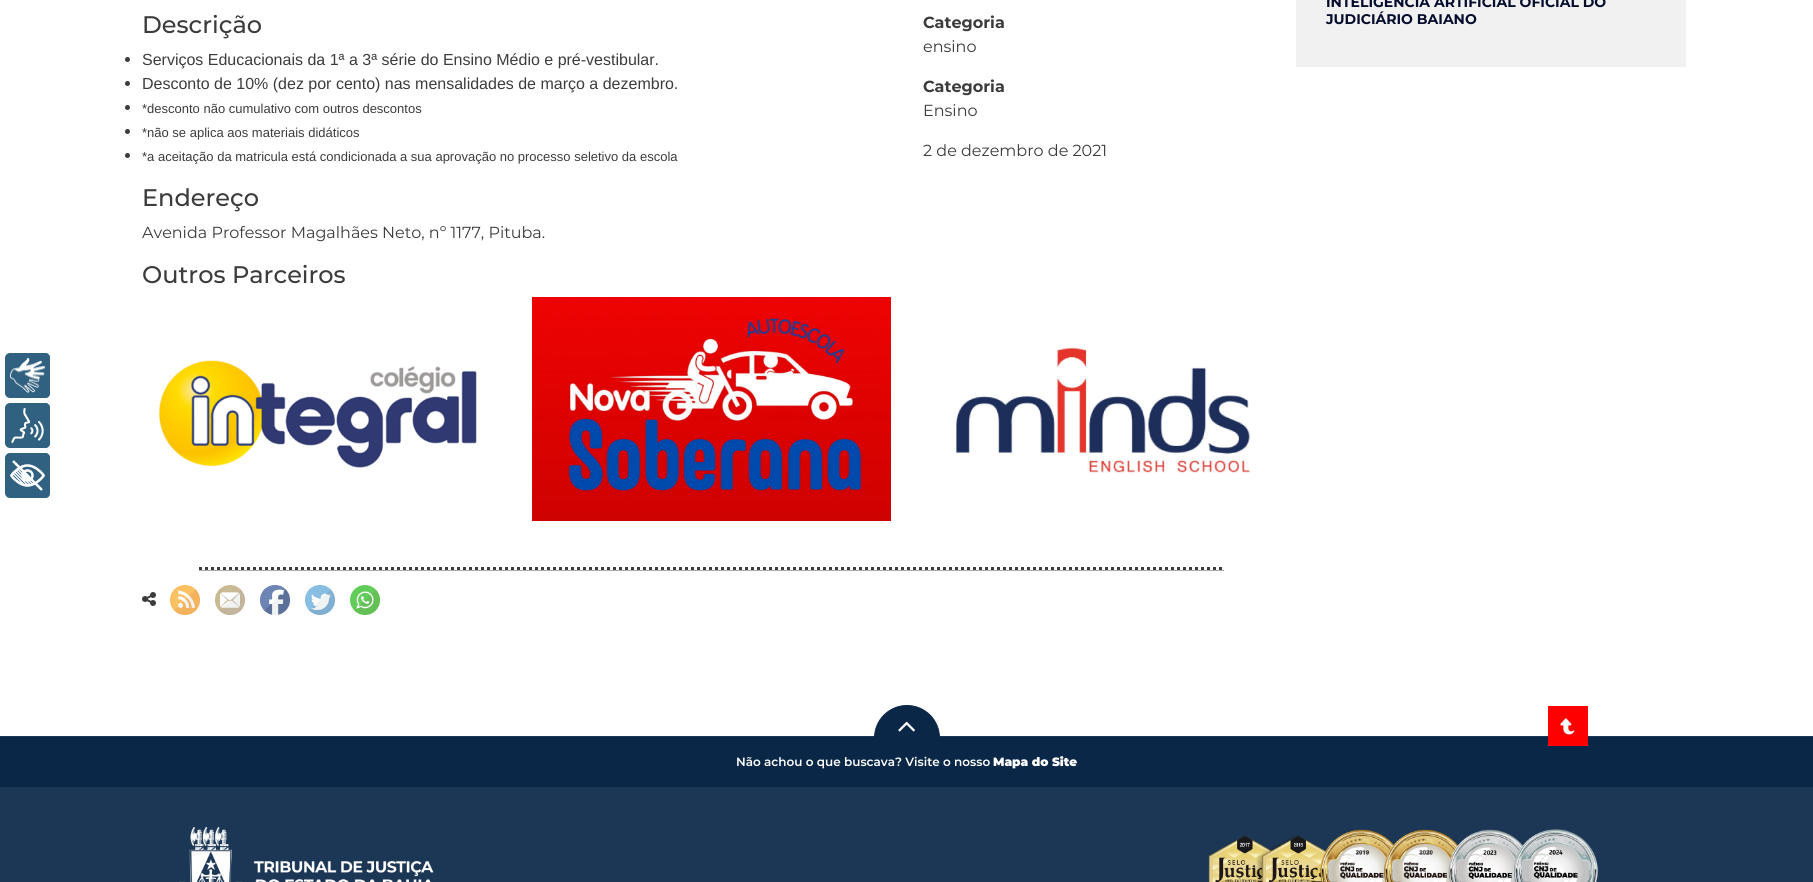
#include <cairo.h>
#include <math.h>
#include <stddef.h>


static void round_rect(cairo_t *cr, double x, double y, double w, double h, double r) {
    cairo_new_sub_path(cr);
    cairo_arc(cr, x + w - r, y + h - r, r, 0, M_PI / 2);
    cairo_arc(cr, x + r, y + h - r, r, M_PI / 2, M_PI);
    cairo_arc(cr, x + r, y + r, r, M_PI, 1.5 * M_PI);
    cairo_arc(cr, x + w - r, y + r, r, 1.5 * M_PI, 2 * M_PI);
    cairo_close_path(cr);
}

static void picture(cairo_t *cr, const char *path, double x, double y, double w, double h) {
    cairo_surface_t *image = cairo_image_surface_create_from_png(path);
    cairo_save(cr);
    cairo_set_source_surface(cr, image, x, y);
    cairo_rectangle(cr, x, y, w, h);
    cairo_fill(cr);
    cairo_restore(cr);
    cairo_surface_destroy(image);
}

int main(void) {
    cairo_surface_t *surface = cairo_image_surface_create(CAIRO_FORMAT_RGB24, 1813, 882);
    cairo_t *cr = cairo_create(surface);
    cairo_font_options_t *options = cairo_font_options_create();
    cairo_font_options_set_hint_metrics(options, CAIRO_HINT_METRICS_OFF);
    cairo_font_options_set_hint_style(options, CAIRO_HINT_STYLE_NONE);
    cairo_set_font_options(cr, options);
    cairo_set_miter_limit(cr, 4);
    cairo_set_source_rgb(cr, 1, 1, 1);
    cairo_paint(cr);
    cairo_select_font_face(cr, "Montserrat Medium", CAIRO_FONT_SLANT_NORMAL, CAIRO_FONT_WEIGHT_NORMAL);
    cairo_set_font_size(cr, 24);
    cairo_set_source_rgb(cr, 0.235, 0.235, 0.235);
    cairo_move_to(cr, 142, 33);
    cairo_show_text(cr, "Descrição");
    cairo_new_path(cr);
    cairo_arc(cr, 127.5, 59.5, 2.5, 0, 2 * M_PI);
    cairo_fill(cr);
    cairo_select_font_face(cr, "Liberation Sans", CAIRO_FONT_SLANT_NORMAL, CAIRO_FONT_WEIGHT_NORMAL);
    cairo_set_font_size(cr, 16);
    cairo_move_to(cr, 142, 65);
    cairo_show_text(cr, "Serviços Educacionais da 1ª a 3ª série do Ensino Médio e pré-vestibular.");
    cairo_new_path(cr);
    cairo_arc(cr, 127.5, 83.5, 2.5, 0, 2 * M_PI);
    cairo_fill(cr);
    cairo_move_to(cr, 142, 89);
    cairo_show_text(cr, "Desconto de 10% (dez por cento) nas mensalidades de março a dezembro.");
    cairo_new_path(cr);
    cairo_arc(cr, 127.5, 107.5, 2.5, 0, 2 * M_PI);
    cairo_fill(cr);
    cairo_set_font_size(cr, 13);
    cairo_move_to(cr, 142, 113);
    cairo_show_text(cr, "*desconto não cumulativo com outros descontos");
    cairo_new_path(cr);
    cairo_arc(cr, 127.5, 131.5, 2.5, 0, 2 * M_PI);
    cairo_fill(cr);
    cairo_move_to(cr, 142, 137);
    cairo_show_text(cr, "*não se aplica aos materiais didáticos");
    cairo_new_path(cr);
    cairo_arc(cr, 127.5, 155.5, 2.5, 0, 2 * M_PI);
    cairo_fill(cr);
    cairo_move_to(cr, 142, 161);
    cairo_show_text(cr, "*a aceitação da matricula está condicionada a sua aprovação no processo seletivo da escola");
    cairo_select_font_face(cr, "Montserrat Medium", CAIRO_FONT_SLANT_NORMAL, CAIRO_FONT_WEIGHT_NORMAL);
    cairo_set_font_size(cr, 24);
    cairo_move_to(cr, 142, 206);
    cairo_show_text(cr, "Endereço");
    cairo_select_font_face(cr, "Montserrat", CAIRO_FONT_SLANT_NORMAL, CAIRO_FONT_WEIGHT_NORMAL);
    cairo_set_font_size(cr, 16);
    cairo_move_to(cr, 142, 238);
    cairo_show_text(cr, "Avenida Professor Magalhães Neto, nº 1177, Pituba.");
    cairo_select_font_face(cr, "Montserrat", CAIRO_FONT_SLANT_NORMAL, CAIRO_FONT_WEIGHT_BOLD);
    cairo_move_to(cr, 923, 28);
    cairo_show_text(cr, "Categoria");
    cairo_select_font_face(cr, "Montserrat", CAIRO_FONT_SLANT_NORMAL, CAIRO_FONT_WEIGHT_NORMAL);
    cairo_move_to(cr, 923, 52);
    cairo_show_text(cr, "ensino");
    cairo_select_font_face(cr, "Montserrat", CAIRO_FONT_SLANT_NORMAL, CAIRO_FONT_WEIGHT_BOLD);
    cairo_move_to(cr, 923, 92);
    cairo_show_text(cr, "Categoria");
    cairo_select_font_face(cr, "Montserrat", CAIRO_FONT_SLANT_NORMAL, CAIRO_FONT_WEIGHT_NORMAL);
    cairo_move_to(cr, 923, 116);
    cairo_show_text(cr, "Ensino");
    cairo_move_to(cr, 923, 156);
    cairo_show_text(cr, "2 de dezembro de 2021");
    cairo_select_font_face(cr, "Montserrat Medium", CAIRO_FONT_SLANT_NORMAL, CAIRO_FONT_WEIGHT_NORMAL);
    cairo_set_font_size(cr, 24);
    cairo_move_to(cr, 142, 283);
    cairo_show_text(cr, "Outros Parceiros");
    picture(cr, "img1.png", 158, 360, 319, 108);
    picture(cr, "img2.png", 532, 297, 359, 224);
    picture(cr, "img3.png", 956, 347, 294, 126);
    cairo_new_path(cr);
    cairo_move_to(cr, 199, 568.5);
    cairo_line_to(cr, 1224, 568.5);
    cairo_set_line_width(cr, 3);
    cairo_set_dash(cr, (double[]){3, 3}, 2, 0);
    cairo_stroke(cr);
    cairo_set_source_rgb(cr, 0.667, 0.667, 0.667);
    cairo_rectangle(cr, 199, 570, 1025, 1);
    cairo_fill(cr);
    picture(cr, "img4.png", 142, 592, 14, 14);
    picture(cr, "img5.png", 170, 585, 30, 30);
    picture(cr, "img6.png", 215, 585, 30, 30);
    picture(cr, "img7.png", 260, 585, 30, 30);
    picture(cr, "img8.png", 305, 585, 30, 30);
    picture(cr, "img9.png", 350, 585, 30, 30);
    cairo_set_source_rgb(cr, 0.945, 0.945, 0.945);
    cairo_rectangle(cr, 1296, 0, 390, 67);
    cairo_fill(cr);
    cairo_select_font_face(cr, "Montserrat", CAIRO_FONT_SLANT_NORMAL, CAIRO_FONT_WEIGHT_BOLD);
    cairo_set_font_size(cr, 14);
    cairo_set_source_rgb(cr, 0.02, 0.051, 0.176);
    cairo_move_to(cr, 1326, 7);
    cairo_show_text(cr, "INTELIGÊNCIA ARTIFICIAL OFICIAL DO");
    cairo_move_to(cr, 1326, 24);
    cairo_show_text(cr, "JUDICIÁRIO BAIANO");
    cairo_set_source_rgb(cr, 0.192, 0.38, 0.506);
    round_rect(cr, 5, 353, 45, 45, 5);
    cairo_fill(cr);
    picture(cr, "img10.png", 10, 358, 35, 35);
    cairo_new_path(cr);
    cairo_move_to(cr, 45, 353);
    cairo_curve_to(cr, 48, 353, 50, 355, 50, 358);
    cairo_line_to(cr, 50, 393);
    cairo_curve_to(cr, 50, 396, 48, 398, 45, 398);
    cairo_close_path(cr);
    cairo_fill(cr);
    round_rect(cr, 5, 403, 45, 45, 5);
    cairo_fill(cr);
    picture(cr, "img11.png", 11, 408, 33, 35);
    cairo_new_path(cr);
    cairo_move_to(cr, 45, 403);
    cairo_curve_to(cr, 48, 403, 50, 405, 50, 408);
    cairo_line_to(cr, 50, 443);
    cairo_curve_to(cr, 50, 446, 48, 448, 45, 448);
    cairo_close_path(cr);
    cairo_fill(cr);
    round_rect(cr, 5, 453, 45, 45, 5);
    cairo_fill(cr);
    picture(cr, "img12.png", 10, 460, 35, 31);
    cairo_new_path(cr);
    cairo_move_to(cr, 45, 453);
    cairo_curve_to(cr, 48, 453, 50, 455, 50, 458);
    cairo_line_to(cr, 50, 493);
    cairo_curve_to(cr, 50, 496, 48, 498, 45, 498);
    cairo_close_path(cr);
    cairo_fill(cr);
    cairo_set_source_rgb(cr, 0.11, 0.216, 0.333);
    cairo_rectangle(cr, 0, 736, 1813, 146);
    cairo_fill(cr);
    cairo_set_source_rgb(cr, 0.043, 0.153, 0.278);
    cairo_arc(cr, 907, 738, 32.5, 0, 2 * M_PI);
    cairo_fill_preserve(cr);
    cairo_set_line_width(cr, 1);
    cairo_set_dash(cr, NULL, 0, 0);
    cairo_stroke(cr);
    cairo_rectangle(cr, 0, 737, 1813, 50);
    cairo_fill(cr);
    cairo_set_source_rgb(cr, 1, 0, 0);
    cairo_rectangle(cr, 1548, 706, 40, 40);
    cairo_fill(cr);
    picture(cr, "img13.png", 1560, 718, 15, 17);
    picture(cr, "img14.png", 898, 721, 17, 11);
    cairo_select_font_face(cr, "Montserrat SemiBold", CAIRO_FONT_SLANT_NORMAL, CAIRO_FONT_WEIGHT_NORMAL);
    cairo_set_font_size(cr, 12);
    cairo_set_source_rgb(cr, 1, 1, 1);
    cairo_move_to(cr, 736, 766);
    cairo_show_text(cr, "Não achou o que buscava? Visite o nosso");
    cairo_select_font_face(cr, "Montserrat Black", CAIRO_FONT_SLANT_NORMAL, CAIRO_FONT_WEIGHT_NORMAL);
    cairo_move_to(cr, 993, 766);
    cairo_show_text(cr, "Mapa do Site");
    picture(cr, "img15.png", 179, 827, 255, 55);
    picture(cr, "img16.png", 1208, 829, 390, 53);
    cairo_surface_write_to_png(surface, "page.png");
    cairo_font_options_destroy(options);
    cairo_destroy(cr);
    cairo_surface_destroy(surface);
    return 0;
}
